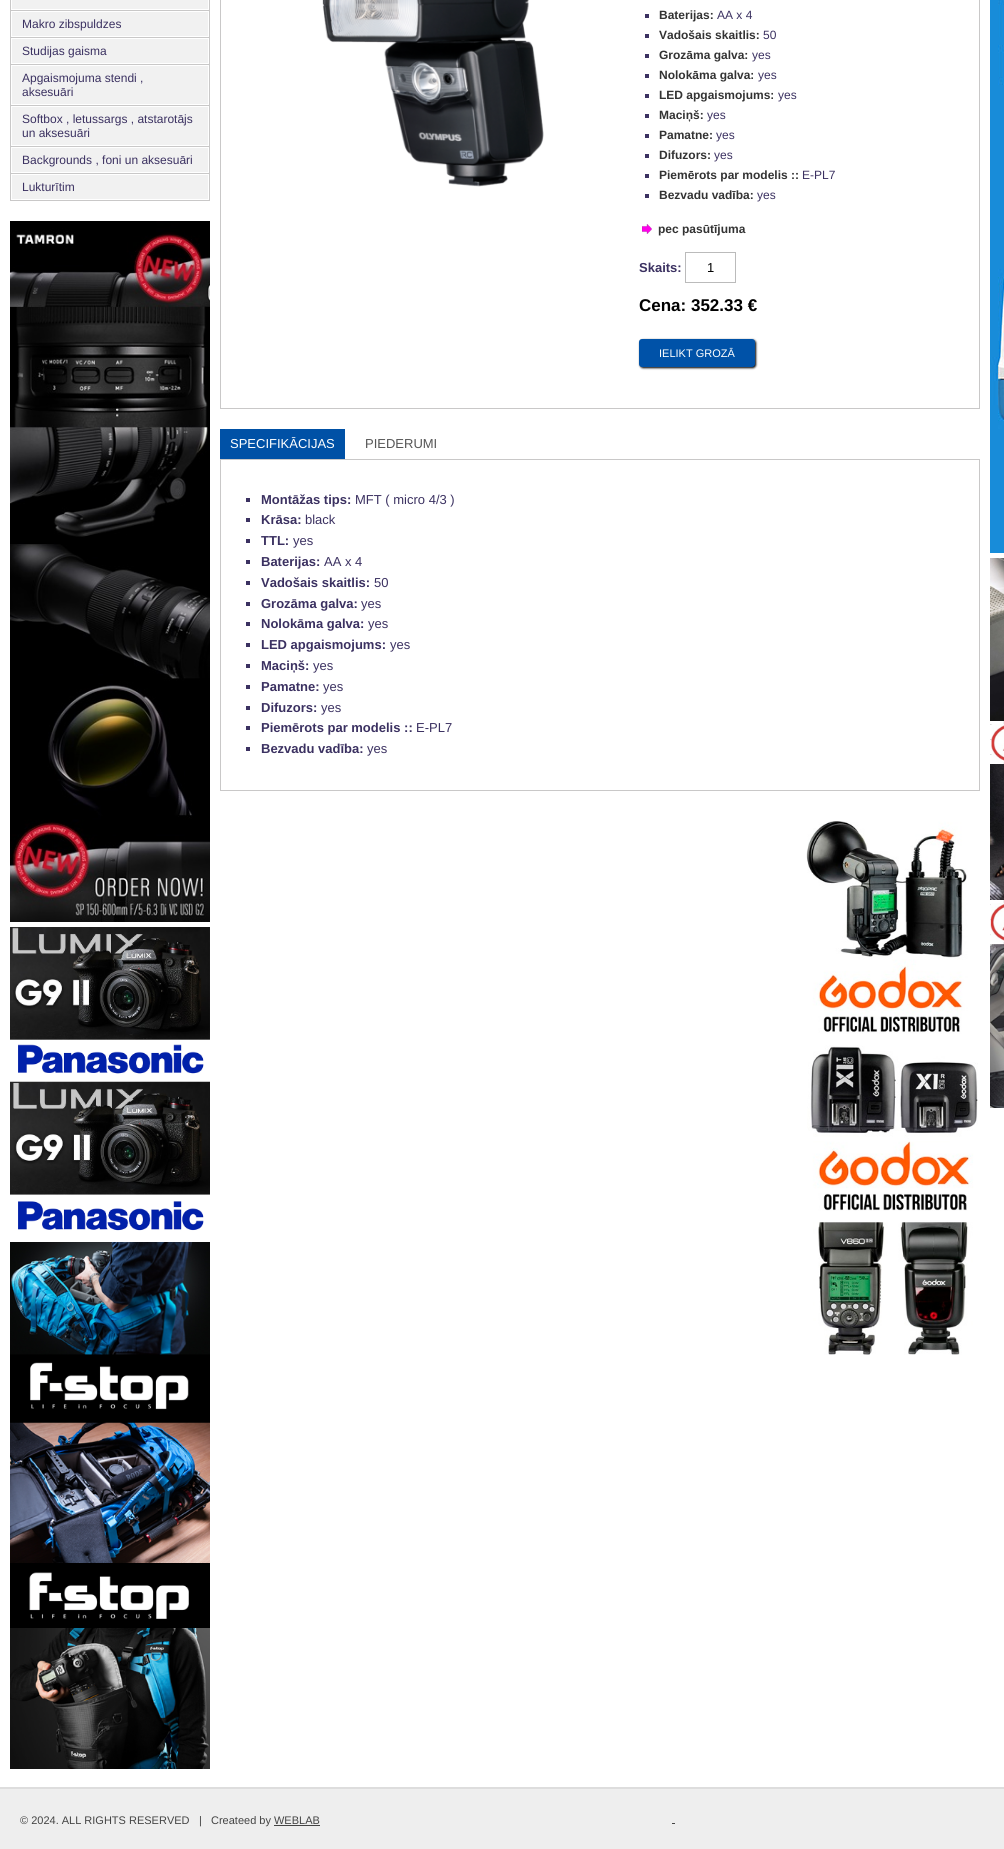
#include <cairo.h>
#include <math.h>
#include <stddef.h>


static void round_rect(cairo_t *cr, double x, double y, double w, double h, double r) {
    cairo_new_sub_path(cr);
    cairo_arc(cr, x + w - r, y + h - r, r, 0, M_PI / 2);
    cairo_arc(cr, x + r, y + h - r, r, M_PI / 2, M_PI);
    cairo_arc(cr, x + r, y + r, r, M_PI, 1.5 * M_PI);
    cairo_arc(cr, x + w - r, y + r, r, 1.5 * M_PI, 2 * M_PI);
    cairo_close_path(cr);
}

static void shadow(cairo_t *cr, double x, double y, double w, double h, double r, double blur, double alpha) {
    cairo_push_group_with_content(cr, CAIRO_CONTENT_ALPHA);
    cairo_set_operator(cr, CAIRO_OPERATOR_SOURCE);
    for (int i = 15; i >= -15 && fmin(w, h) + blur * i / 3 > 0; i -= 2) {
        double e = blur * i / 6;
        cairo_set_source_rgba(cr, 0, 0, 0, alpha * erfc((i - 1) / 8.5) / 2);
        round_rect(cr, x - e, y - e, w + 2 * e, h + 2 * e, fmax(0, fmin(r + e + blur * .6, fmin(w, h) / 2 + e)));
        cairo_fill(cr);
    }
    cairo_pattern_t *soft = cairo_pop_group(cr);
    cairo_mask(cr, soft);
    cairo_pattern_destroy(soft);
}

static void picture(cairo_t *cr, const char *path, double x, double y, double w, double h) {
    cairo_surface_t *image = cairo_image_surface_create_from_png(path);
    cairo_save(cr);
    cairo_set_source_surface(cr, image, x, y);
    cairo_rectangle(cr, x, y, w, h);
    cairo_fill(cr);
    cairo_restore(cr);
    cairo_surface_destroy(image);
}

int main(void) {
    cairo_surface_t *surface = cairo_image_surface_create(CAIRO_FORMAT_RGB24, 1004, 1849);
    cairo_t *cr = cairo_create(surface);
    cairo_font_options_t *options = cairo_font_options_create();
    cairo_font_options_set_hint_metrics(options, CAIRO_HINT_METRICS_OFF);
    cairo_font_options_set_hint_style(options, CAIRO_HINT_STYLE_NONE);
    cairo_set_font_options(cr, options);
    cairo_set_miter_limit(cr, 4);
    cairo_set_source_rgb(cr, 1, 1, 1);
    cairo_paint(cr);
    cairo_rectangle(cr, 10.5, -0.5, 199, 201);
    cairo_set_source_rgb(cr, 0.788, 0.784, 0.784);
    cairo_set_line_width(cr, 1);
    cairo_stroke(cr);
    cairo_set_source_rgb(cr, 0.945, 0.945, 0.945);
    cairo_rectangle(cr, 12, 0, 196, 9);
    cairo_fill(cr);
    cairo_rectangle(cr, 12, 12, 196, 24);
    cairo_fill(cr);
    cairo_set_source_rgb(cr, 0.788, 0.784, 0.784);
    cairo_rectangle(cr, 11, 10, 198, 1);
    cairo_fill(cr);
    cairo_select_font_face(cr, "Liberation Sans", CAIRO_FONT_SLANT_NORMAL, CAIRO_FONT_WEIGHT_NORMAL);
    cairo_set_font_size(cr, 12);
    cairo_set_source_rgb(cr, 0.231, 0.192, 0.38);
    cairo_move_to(cr, 22, 28);
    cairo_show_text(cr, "Makro zibspuldzes");
    cairo_set_source_rgb(cr, 0.945, 0.945, 0.945);
    cairo_rectangle(cr, 12, 39, 196, 24);
    cairo_fill(cr);
    cairo_set_source_rgb(cr, 0.788, 0.784, 0.784);
    cairo_rectangle(cr, 11, 37, 198, 1);
    cairo_fill(cr);
    cairo_set_source_rgb(cr, 0.231, 0.192, 0.38);
    cairo_move_to(cr, 22, 55);
    cairo_show_text(cr, "Studijas gaisma");
    cairo_set_source_rgb(cr, 0.945, 0.945, 0.945);
    cairo_rectangle(cr, 12, 66, 196, 38);
    cairo_fill(cr);
    cairo_set_source_rgb(cr, 0.788, 0.784, 0.784);
    cairo_rectangle(cr, 11, 64, 198, 1);
    cairo_fill(cr);
    cairo_set_source_rgb(cr, 0.231, 0.192, 0.38);
    cairo_move_to(cr, 22, 82);
    cairo_show_text(cr, "Apgaismojuma stendi ,");
    cairo_move_to(cr, 22, 96);
    cairo_show_text(cr, "aksesuāri");
    cairo_set_source_rgb(cr, 0.945, 0.945, 0.945);
    cairo_rectangle(cr, 12, 107, 196, 38);
    cairo_fill(cr);
    cairo_set_source_rgb(cr, 0.788, 0.784, 0.784);
    cairo_rectangle(cr, 11, 105, 198, 1);
    cairo_fill(cr);
    cairo_set_source_rgb(cr, 0.231, 0.192, 0.38);
    cairo_move_to(cr, 22, 123);
    cairo_show_text(cr, "Softbox , letussargs , atstarotājs");
    cairo_move_to(cr, 22, 137);
    cairo_show_text(cr, "un aksesuāri");
    cairo_set_source_rgb(cr, 0.945, 0.945, 0.945);
    cairo_rectangle(cr, 12, 148, 196, 24);
    cairo_fill(cr);
    cairo_set_source_rgb(cr, 0.788, 0.784, 0.784);
    cairo_rectangle(cr, 11, 146, 198, 1);
    cairo_fill(cr);
    cairo_set_source_rgb(cr, 0.231, 0.192, 0.38);
    cairo_move_to(cr, 22, 164);
    cairo_show_text(cr, "Backgrounds , foni un aksesuāri");
    cairo_set_source_rgb(cr, 0.945, 0.945, 0.945);
    cairo_rectangle(cr, 12, 175, 196, 24);
    cairo_fill(cr);
    cairo_set_source_rgb(cr, 0.788, 0.784, 0.784);
    cairo_rectangle(cr, 11, 173, 198, 1);
    cairo_fill(cr);
    cairo_set_source_rgb(cr, 0.231, 0.192, 0.38);
    cairo_move_to(cr, 22, 191);
    cairo_show_text(cr, "Lukturītim");
    picture(cr, "img1.png", 10, 221, 200, 701);
    picture(cr, "img2.png", 10, 927, 200, 304);
    picture(cr, "img3.png", 10, 1242, 200, 527);
    cairo_rectangle(cr, 220.5, -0.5, 759, 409);
    cairo_set_source_rgb(cr, 0.788, 0.784, 0.784);
    cairo_stroke(cr);
    picture(cr, "img4.png", 322, 0, 222, 187);
    cairo_set_source_rgb(cr, 0.231, 0.192, 0.38);
    cairo_rectangle(cr, 645, 14, 4, 4);
    cairo_fill(cr);
    cairo_select_font_face(cr, "Liberation Sans", CAIRO_FONT_SLANT_NORMAL, CAIRO_FONT_WEIGHT_BOLD);
    cairo_set_source_rgb(cr, 0.2, 0.2, 0.2);
    cairo_move_to(cr, 659, 19);
    cairo_show_text(cr, "Baterijas:");
    cairo_select_font_face(cr, "Liberation Sans", CAIRO_FONT_SLANT_NORMAL, CAIRO_FONT_WEIGHT_NORMAL);
    cairo_set_source_rgb(cr, 0.231, 0.192, 0.38);
    cairo_move_to(cr, 717, 19);
    cairo_show_text(cr, "AA x 4");
    cairo_rectangle(cr, 645, 34, 4, 4);
    cairo_fill(cr);
    cairo_select_font_face(cr, "Liberation Sans", CAIRO_FONT_SLANT_NORMAL, CAIRO_FONT_WEIGHT_BOLD);
    cairo_set_source_rgb(cr, 0.2, 0.2, 0.2);
    cairo_move_to(cr, 659, 39);
    cairo_show_text(cr, "Vadošais skaitlis:");
    cairo_select_font_face(cr, "Liberation Sans", CAIRO_FONT_SLANT_NORMAL, CAIRO_FONT_WEIGHT_NORMAL);
    cairo_set_source_rgb(cr, 0.231, 0.192, 0.38);
    cairo_move_to(cr, 763, 39);
    cairo_show_text(cr, "50");
    cairo_rectangle(cr, 645, 54, 4, 4);
    cairo_fill(cr);
    cairo_select_font_face(cr, "Liberation Sans", CAIRO_FONT_SLANT_NORMAL, CAIRO_FONT_WEIGHT_BOLD);
    cairo_set_source_rgb(cr, 0.2, 0.2, 0.2);
    cairo_move_to(cr, 659, 59);
    cairo_show_text(cr, "Grozāma galva:");
    cairo_select_font_face(cr, "Liberation Sans", CAIRO_FONT_SLANT_NORMAL, CAIRO_FONT_WEIGHT_NORMAL);
    cairo_set_source_rgb(cr, 0.231, 0.192, 0.38);
    cairo_move_to(cr, 752, 59);
    cairo_show_text(cr, "yes");
    cairo_rectangle(cr, 645, 74, 4, 4);
    cairo_fill(cr);
    cairo_select_font_face(cr, "Liberation Sans", CAIRO_FONT_SLANT_NORMAL, CAIRO_FONT_WEIGHT_BOLD);
    cairo_set_source_rgb(cr, 0.2, 0.2, 0.2);
    cairo_move_to(cr, 659, 79);
    cairo_show_text(cr, "Nolokāma galva:");
    cairo_select_font_face(cr, "Liberation Sans", CAIRO_FONT_SLANT_NORMAL, CAIRO_FONT_WEIGHT_NORMAL);
    cairo_set_source_rgb(cr, 0.231, 0.192, 0.38);
    cairo_move_to(cr, 758, 79);
    cairo_show_text(cr, "yes");
    cairo_rectangle(cr, 645, 94, 4, 4);
    cairo_fill(cr);
    cairo_select_font_face(cr, "Liberation Sans", CAIRO_FONT_SLANT_NORMAL, CAIRO_FONT_WEIGHT_BOLD);
    cairo_set_source_rgb(cr, 0.2, 0.2, 0.2);
    cairo_move_to(cr, 659, 99);
    cairo_show_text(cr, "LED apgaismojums:");
    cairo_select_font_face(cr, "Liberation Sans", CAIRO_FONT_SLANT_NORMAL, CAIRO_FONT_WEIGHT_NORMAL);
    cairo_set_source_rgb(cr, 0.231, 0.192, 0.38);
    cairo_move_to(cr, 778, 99);
    cairo_show_text(cr, "yes");
    cairo_rectangle(cr, 645, 114, 4, 4);
    cairo_fill(cr);
    cairo_select_font_face(cr, "Liberation Sans", CAIRO_FONT_SLANT_NORMAL, CAIRO_FONT_WEIGHT_BOLD);
    cairo_set_source_rgb(cr, 0.2, 0.2, 0.2);
    cairo_move_to(cr, 659, 119);
    cairo_show_text(cr, "Maciņš:");
    cairo_select_font_face(cr, "Liberation Sans", CAIRO_FONT_SLANT_NORMAL, CAIRO_FONT_WEIGHT_NORMAL);
    cairo_set_source_rgb(cr, 0.231, 0.192, 0.38);
    cairo_move_to(cr, 707, 119);
    cairo_show_text(cr, "yes");
    cairo_rectangle(cr, 645, 134, 4, 4);
    cairo_fill(cr);
    cairo_select_font_face(cr, "Liberation Sans", CAIRO_FONT_SLANT_NORMAL, CAIRO_FONT_WEIGHT_BOLD);
    cairo_set_source_rgb(cr, 0.2, 0.2, 0.2);
    cairo_move_to(cr, 659, 139);
    cairo_show_text(cr, "Pamatne:");
    cairo_select_font_face(cr, "Liberation Sans", CAIRO_FONT_SLANT_NORMAL, CAIRO_FONT_WEIGHT_NORMAL);
    cairo_set_source_rgb(cr, 0.231, 0.192, 0.38);
    cairo_move_to(cr, 716, 139);
    cairo_show_text(cr, "yes");
    cairo_rectangle(cr, 645, 154, 4, 4);
    cairo_fill(cr);
    cairo_select_font_face(cr, "Liberation Sans", CAIRO_FONT_SLANT_NORMAL, CAIRO_FONT_WEIGHT_BOLD);
    cairo_set_source_rgb(cr, 0.2, 0.2, 0.2);
    cairo_move_to(cr, 659, 159);
    cairo_show_text(cr, "Difuzors:");
    cairo_select_font_face(cr, "Liberation Sans", CAIRO_FONT_SLANT_NORMAL, CAIRO_FONT_WEIGHT_NORMAL);
    cairo_set_source_rgb(cr, 0.231, 0.192, 0.38);
    cairo_move_to(cr, 714, 159);
    cairo_show_text(cr, "yes");
    cairo_rectangle(cr, 645, 174, 4, 4);
    cairo_fill(cr);
    cairo_select_font_face(cr, "Liberation Sans", CAIRO_FONT_SLANT_NORMAL, CAIRO_FONT_WEIGHT_BOLD);
    cairo_set_source_rgb(cr, 0.2, 0.2, 0.2);
    cairo_move_to(cr, 659, 179);
    cairo_show_text(cr, "Piemērots par modelis ::");
    cairo_select_font_face(cr, "Liberation Sans", CAIRO_FONT_SLANT_NORMAL, CAIRO_FONT_WEIGHT_NORMAL);
    cairo_set_source_rgb(cr, 0.231, 0.192, 0.38);
    cairo_move_to(cr, 802, 179);
    cairo_show_text(cr, "E-PL7");
    cairo_rectangle(cr, 645, 194, 4, 4);
    cairo_fill(cr);
    cairo_select_font_face(cr, "Liberation Sans", CAIRO_FONT_SLANT_NORMAL, CAIRO_FONT_WEIGHT_BOLD);
    cairo_set_source_rgb(cr, 0.2, 0.2, 0.2);
    cairo_move_to(cr, 659, 199);
    cairo_show_text(cr, "Bezvadu vadība:");
    cairo_select_font_face(cr, "Liberation Sans", CAIRO_FONT_SLANT_NORMAL, CAIRO_FONT_WEIGHT_NORMAL);
    cairo_set_source_rgb(cr, 0.231, 0.192, 0.38);
    cairo_move_to(cr, 757, 199);
    cairo_show_text(cr, "yes");
    picture(cr, "img5.png", 642, 224, 10, 10);
    cairo_select_font_face(cr, "Liberation Sans", CAIRO_FONT_SLANT_NORMAL, CAIRO_FONT_WEIGHT_BOLD);
    cairo_set_source_rgb(cr, 0.2, 0.2, 0.2);
    cairo_move_to(cr, 658, 233);
    cairo_show_text(cr, "pec pasūtījuma");
    cairo_set_font_size(cr, 13);
    cairo_set_source_rgb(cr, 0.231, 0.192, 0.38);
    cairo_move_to(cr, 639, 272);
    cairo_show_text(cr, "Skaits:");
    cairo_rectangle(cr, 685.5, 252.5, 50, 30);
    cairo_set_source_rgb(cr, 0.733, 0.733, 0.733);
    cairo_stroke(cr);
    cairo_select_font_face(cr, "Liberation Sans", CAIRO_FONT_SLANT_NORMAL, CAIRO_FONT_WEIGHT_NORMAL);
    cairo_set_source_rgb(cr, 0, 0, 0);
    cairo_move_to(cr, 707, 272);
    cairo_show_text(cr, "1");
    cairo_select_font_face(cr, "Liberation Sans", CAIRO_FONT_SLANT_NORMAL, CAIRO_FONT_WEIGHT_BOLD);
    cairo_set_font_size(cr, 17);
    cairo_move_to(cr, 639, 311);
    cairo_show_text(cr, "Cena: 352.33 €");
    cairo_set_source_rgb(cr, 0, 0, 0);
    shadow(cr, 640, 340, 116, 28, 3, 1, 1);
    cairo_set_source_rgb(cr, 0, 0.322, 0.659);
    round_rect(cr, 639, 339, 116, 28, 3);
    cairo_fill(cr);
    cairo_select_font_face(cr, "Liberation Sans", CAIRO_FONT_SLANT_NORMAL, CAIRO_FONT_WEIGHT_NORMAL);
    cairo_set_font_size(cr, 11);
    cairo_set_source_rgb(cr, 1, 1, 1);
    cairo_move_to(cr, 659, 357);
    cairo_show_text(cr, "IELIKT GROZĀ");
    cairo_set_source_rgb(cr, 0, 0.318, 0.651);
    cairo_rectangle(cr, 220, 429, 125, 30);
    cairo_fill(cr);
    cairo_set_font_size(cr, 13);
    cairo_set_source_rgb(cr, 1, 1, 1);
    cairo_move_to(cr, 230, 448);
    cairo_show_text(cr, "SPECIFIKĀCIJAS");
    cairo_set_source_rgb(cr, 0.333, 0.333, 0.333);
    cairo_move_to(cr, 365, 448);
    cairo_show_text(cr, "PIEDERUMI");
    cairo_rectangle(cr, 220.5, 459.5, 759, 331);
    cairo_set_source_rgb(cr, 0.788, 0.784, 0.784);
    cairo_stroke(cr);
    cairo_set_source_rgb(cr, 0.231, 0.192, 0.38);
    cairo_rectangle(cr, 246, 498, 4, 4);
    cairo_fill(cr);
    cairo_select_font_face(cr, "Liberation Sans", CAIRO_FONT_SLANT_NORMAL, CAIRO_FONT_WEIGHT_BOLD);
    cairo_move_to(cr, 261, 504);
    cairo_show_text(cr, "Montāžas tips:");
    cairo_select_font_face(cr, "Liberation Sans", CAIRO_FONT_SLANT_NORMAL, CAIRO_FONT_WEIGHT_NORMAL);
    cairo_move_to(cr, 355, 504);
    cairo_show_text(cr, "MFT ( micro 4/3 )");
    cairo_rectangle(cr, 246, 518, 4, 4);
    cairo_fill(cr);
    cairo_select_font_face(cr, "Liberation Sans", CAIRO_FONT_SLANT_NORMAL, CAIRO_FONT_WEIGHT_BOLD);
    cairo_move_to(cr, 261, 524);
    cairo_show_text(cr, "Krāsa:");
    cairo_select_font_face(cr, "Liberation Sans", CAIRO_FONT_SLANT_NORMAL, CAIRO_FONT_WEIGHT_NORMAL);
    cairo_move_to(cr, 305, 524);
    cairo_show_text(cr, "black");
    cairo_rectangle(cr, 246, 539, 4, 4);
    cairo_fill(cr);
    cairo_select_font_face(cr, "Liberation Sans", CAIRO_FONT_SLANT_NORMAL, CAIRO_FONT_WEIGHT_BOLD);
    cairo_move_to(cr, 261, 545);
    cairo_show_text(cr, "TTL:");
    cairo_select_font_face(cr, "Liberation Sans", CAIRO_FONT_SLANT_NORMAL, CAIRO_FONT_WEIGHT_NORMAL);
    cairo_move_to(cr, 293, 545);
    cairo_show_text(cr, "yes");
    cairo_rectangle(cr, 246, 560, 4, 4);
    cairo_fill(cr);
    cairo_select_font_face(cr, "Liberation Sans", CAIRO_FONT_SLANT_NORMAL, CAIRO_FONT_WEIGHT_BOLD);
    cairo_move_to(cr, 261, 566);
    cairo_show_text(cr, "Baterijas:");
    cairo_select_font_face(cr, "Liberation Sans", CAIRO_FONT_SLANT_NORMAL, CAIRO_FONT_WEIGHT_NORMAL);
    cairo_move_to(cr, 324, 566);
    cairo_show_text(cr, "AA x 4");
    cairo_rectangle(cr, 246, 581, 4, 4);
    cairo_fill(cr);
    cairo_select_font_face(cr, "Liberation Sans", CAIRO_FONT_SLANT_NORMAL, CAIRO_FONT_WEIGHT_BOLD);
    cairo_move_to(cr, 261, 587);
    cairo_show_text(cr, "Vadošais skaitlis:");
    cairo_select_font_face(cr, "Liberation Sans", CAIRO_FONT_SLANT_NORMAL, CAIRO_FONT_WEIGHT_NORMAL);
    cairo_move_to(cr, 374, 587);
    cairo_show_text(cr, "50");
    cairo_rectangle(cr, 246, 602, 4, 4);
    cairo_fill(cr);
    cairo_select_font_face(cr, "Liberation Sans", CAIRO_FONT_SLANT_NORMAL, CAIRO_FONT_WEIGHT_BOLD);
    cairo_move_to(cr, 261, 608);
    cairo_show_text(cr, "Grozāma galva:");
    cairo_select_font_face(cr, "Liberation Sans", CAIRO_FONT_SLANT_NORMAL, CAIRO_FONT_WEIGHT_NORMAL);
    cairo_move_to(cr, 361, 608);
    cairo_show_text(cr, "yes");
    cairo_rectangle(cr, 246, 622, 4, 4);
    cairo_fill(cr);
    cairo_select_font_face(cr, "Liberation Sans", CAIRO_FONT_SLANT_NORMAL, CAIRO_FONT_WEIGHT_BOLD);
    cairo_move_to(cr, 261, 628);
    cairo_show_text(cr, "Nolokāma galva:");
    cairo_select_font_face(cr, "Liberation Sans", CAIRO_FONT_SLANT_NORMAL, CAIRO_FONT_WEIGHT_NORMAL);
    cairo_move_to(cr, 368, 628);
    cairo_show_text(cr, "yes");
    cairo_rectangle(cr, 246, 643, 4, 4);
    cairo_fill(cr);
    cairo_select_font_face(cr, "Liberation Sans", CAIRO_FONT_SLANT_NORMAL, CAIRO_FONT_WEIGHT_BOLD);
    cairo_move_to(cr, 261, 649);
    cairo_show_text(cr, "LED apgaismojums:");
    cairo_select_font_face(cr, "Liberation Sans", CAIRO_FONT_SLANT_NORMAL, CAIRO_FONT_WEIGHT_NORMAL);
    cairo_move_to(cr, 390, 649);
    cairo_show_text(cr, "yes");
    cairo_rectangle(cr, 246, 664, 4, 4);
    cairo_fill(cr);
    cairo_select_font_face(cr, "Liberation Sans", CAIRO_FONT_SLANT_NORMAL, CAIRO_FONT_WEIGHT_BOLD);
    cairo_move_to(cr, 261, 670);
    cairo_show_text(cr, "Maciņš:");
    cairo_select_font_face(cr, "Liberation Sans", CAIRO_FONT_SLANT_NORMAL, CAIRO_FONT_WEIGHT_NORMAL);
    cairo_move_to(cr, 313, 670);
    cairo_show_text(cr, "yes");
    cairo_rectangle(cr, 246, 685, 4, 4);
    cairo_fill(cr);
    cairo_select_font_face(cr, "Liberation Sans", CAIRO_FONT_SLANT_NORMAL, CAIRO_FONT_WEIGHT_BOLD);
    cairo_move_to(cr, 261, 691);
    cairo_show_text(cr, "Pamatne:");
    cairo_select_font_face(cr, "Liberation Sans", CAIRO_FONT_SLANT_NORMAL, CAIRO_FONT_WEIGHT_NORMAL);
    cairo_move_to(cr, 323, 691);
    cairo_show_text(cr, "yes");
    cairo_rectangle(cr, 246, 706, 4, 4);
    cairo_fill(cr);
    cairo_select_font_face(cr, "Liberation Sans", CAIRO_FONT_SLANT_NORMAL, CAIRO_FONT_WEIGHT_BOLD);
    cairo_move_to(cr, 261, 712);
    cairo_show_text(cr, "Difuzors:");
    cairo_select_font_face(cr, "Liberation Sans", CAIRO_FONT_SLANT_NORMAL, CAIRO_FONT_WEIGHT_NORMAL);
    cairo_move_to(cr, 321, 712);
    cairo_show_text(cr, "yes");
    cairo_rectangle(cr, 246, 726, 4, 4);
    cairo_fill(cr);
    cairo_select_font_face(cr, "Liberation Sans", CAIRO_FONT_SLANT_NORMAL, CAIRO_FONT_WEIGHT_BOLD);
    cairo_move_to(cr, 261, 732);
    cairo_show_text(cr, "Piemērots par modelis ::");
    cairo_select_font_face(cr, "Liberation Sans", CAIRO_FONT_SLANT_NORMAL, CAIRO_FONT_WEIGHT_NORMAL);
    cairo_move_to(cr, 416, 732);
    cairo_show_text(cr, "E-PL7");
    cairo_rectangle(cr, 246, 747, 4, 4);
    cairo_fill(cr);
    cairo_select_font_face(cr, "Liberation Sans", CAIRO_FONT_SLANT_NORMAL, CAIRO_FONT_WEIGHT_BOLD);
    cairo_move_to(cr, 261, 753);
    cairo_show_text(cr, "Bezvadu vadība:");
    cairo_select_font_face(cr, "Liberation Sans", CAIRO_FONT_SLANT_NORMAL, CAIRO_FONT_WEIGHT_NORMAL);
    cairo_move_to(cr, 367, 753);
    cairo_show_text(cr, "yes");
    picture(cr, "img6.png", 990, 0, 14, 553);
    picture(cr, "img7.png", 806, 821, 172, 534);
    picture(cr, "img8.png", 990, 558, 14, 550);
    cairo_set_source_rgb(cr, 0.933, 0.933, 0.933);
    cairo_rectangle(cr, 0, 1789, 1004, 60);
    cairo_fill(cr);
    cairo_set_source_rgb(cr, 0.867, 0.867, 0.867);
    cairo_rectangle(cr, 0, 1787, 1004, 2);
    cairo_fill(cr);
    cairo_set_font_size(cr, 11);
    cairo_set_source_rgb(cr, 0.267, 0.267, 0.267);
    cairo_move_to(cr, 20, 1824);
    cairo_show_text(cr, "© 2024. ALL RIGHTS RESERVED");
    cairo_move_to(cr, 199, 1824);
    cairo_show_text(cr, "|");
    cairo_move_to(cr, 211, 1824);
    cairo_show_text(cr, "Createed by WEBLAB");
    cairo_rectangle(cr, 274, 1825, 46, 1);
    cairo_fill(cr);
    cairo_rectangle(cr, 672, 1823, 3, 1);
    cairo_fill(cr);
    cairo_surface_write_to_png(surface, "page.png");
    cairo_font_options_destroy(options);
    cairo_destroy(cr);
    cairo_surface_destroy(surface);
    return 0;
}
